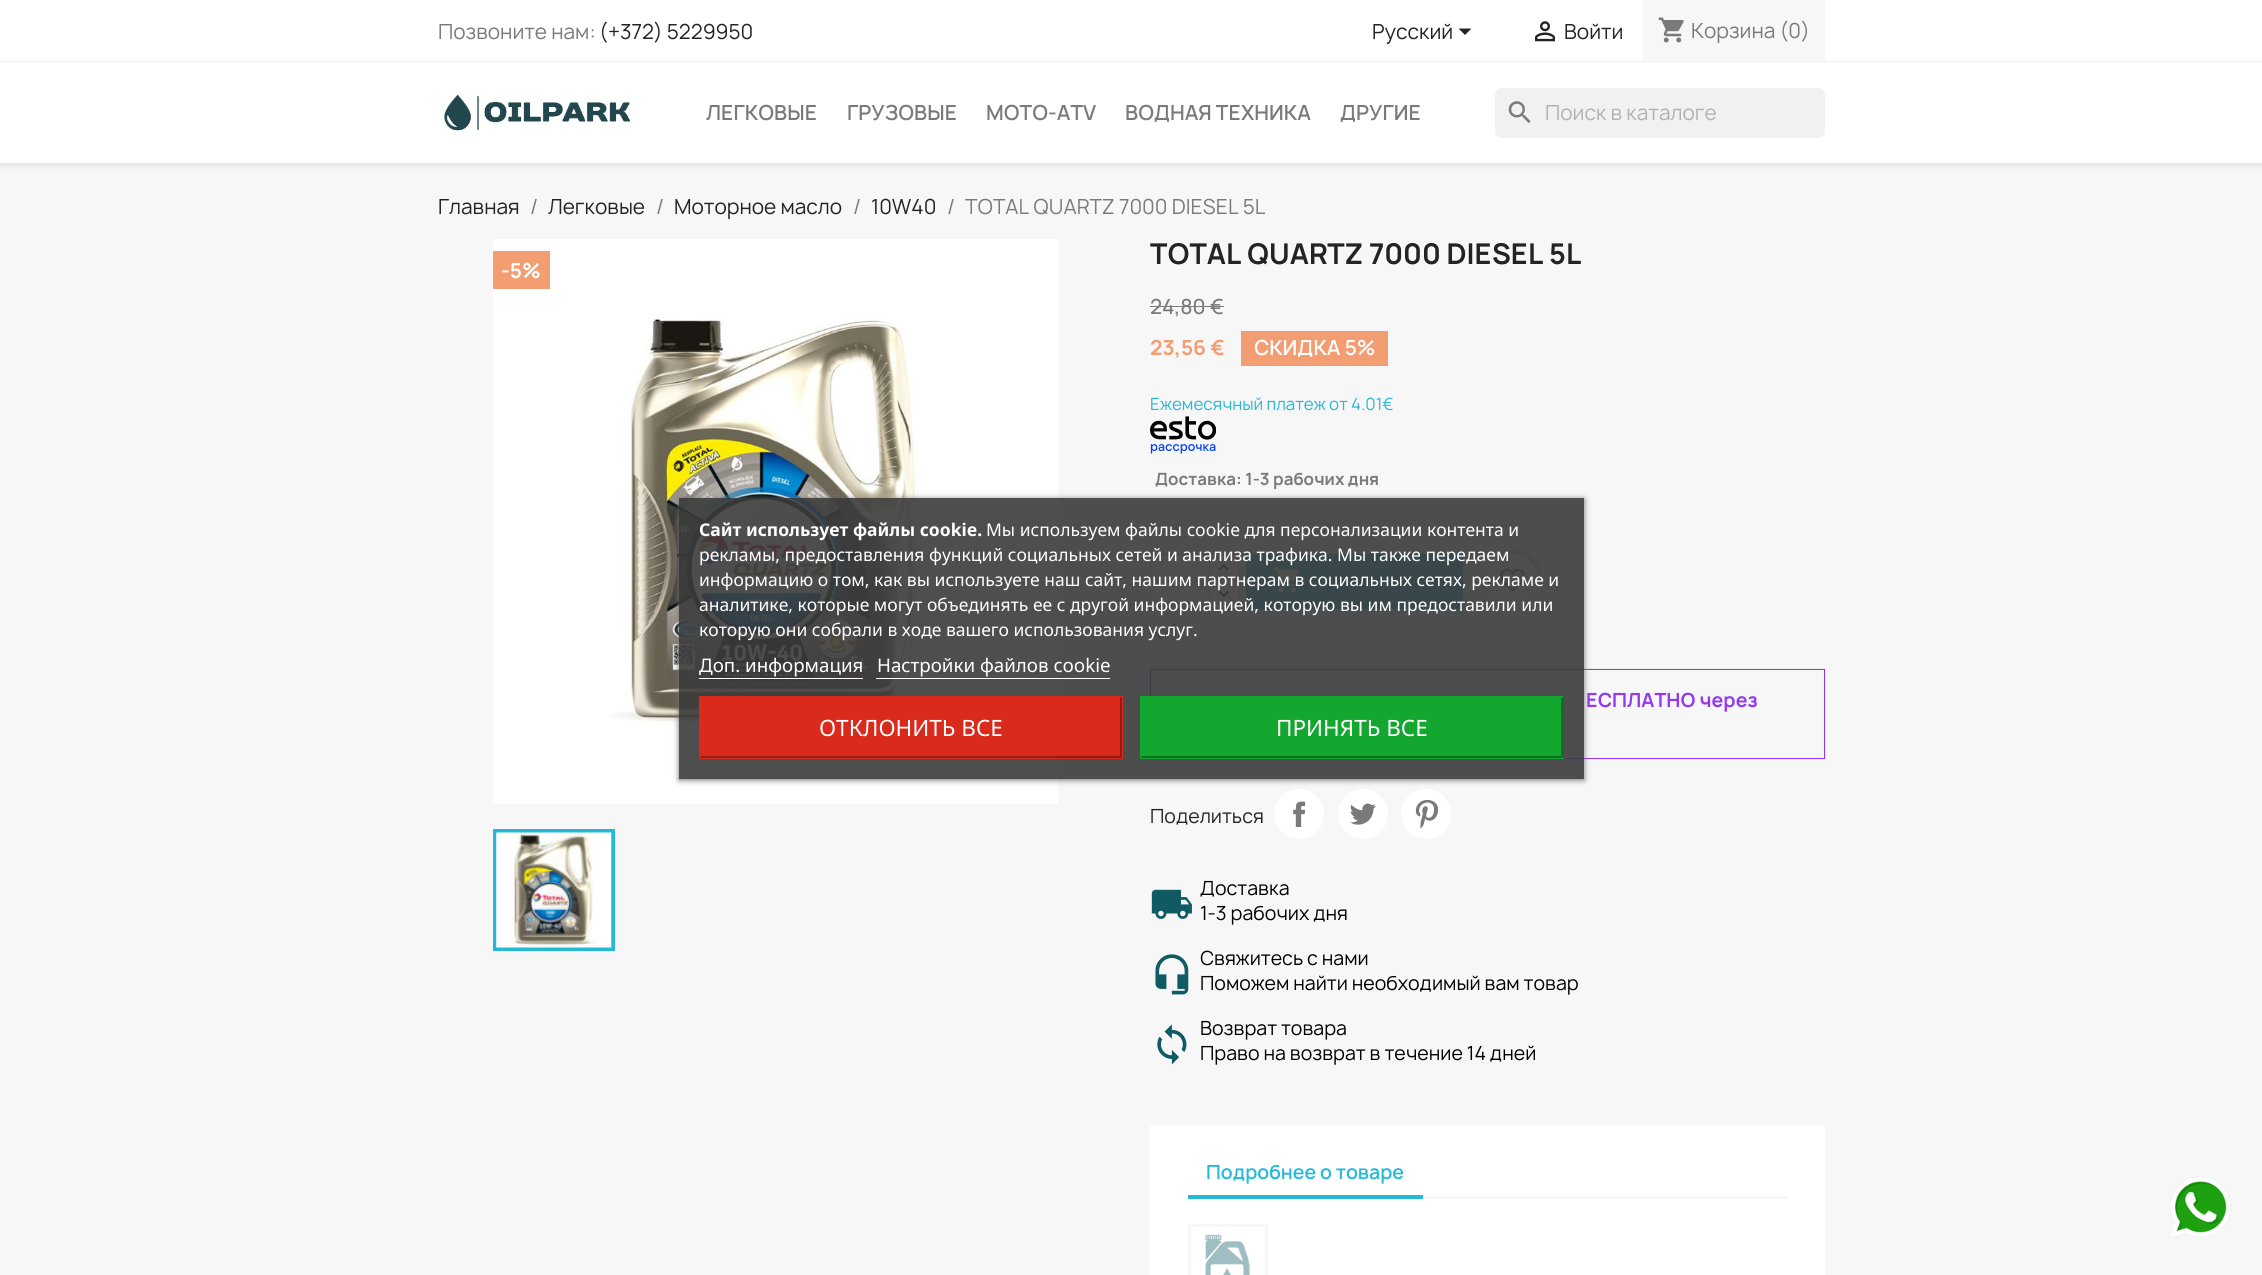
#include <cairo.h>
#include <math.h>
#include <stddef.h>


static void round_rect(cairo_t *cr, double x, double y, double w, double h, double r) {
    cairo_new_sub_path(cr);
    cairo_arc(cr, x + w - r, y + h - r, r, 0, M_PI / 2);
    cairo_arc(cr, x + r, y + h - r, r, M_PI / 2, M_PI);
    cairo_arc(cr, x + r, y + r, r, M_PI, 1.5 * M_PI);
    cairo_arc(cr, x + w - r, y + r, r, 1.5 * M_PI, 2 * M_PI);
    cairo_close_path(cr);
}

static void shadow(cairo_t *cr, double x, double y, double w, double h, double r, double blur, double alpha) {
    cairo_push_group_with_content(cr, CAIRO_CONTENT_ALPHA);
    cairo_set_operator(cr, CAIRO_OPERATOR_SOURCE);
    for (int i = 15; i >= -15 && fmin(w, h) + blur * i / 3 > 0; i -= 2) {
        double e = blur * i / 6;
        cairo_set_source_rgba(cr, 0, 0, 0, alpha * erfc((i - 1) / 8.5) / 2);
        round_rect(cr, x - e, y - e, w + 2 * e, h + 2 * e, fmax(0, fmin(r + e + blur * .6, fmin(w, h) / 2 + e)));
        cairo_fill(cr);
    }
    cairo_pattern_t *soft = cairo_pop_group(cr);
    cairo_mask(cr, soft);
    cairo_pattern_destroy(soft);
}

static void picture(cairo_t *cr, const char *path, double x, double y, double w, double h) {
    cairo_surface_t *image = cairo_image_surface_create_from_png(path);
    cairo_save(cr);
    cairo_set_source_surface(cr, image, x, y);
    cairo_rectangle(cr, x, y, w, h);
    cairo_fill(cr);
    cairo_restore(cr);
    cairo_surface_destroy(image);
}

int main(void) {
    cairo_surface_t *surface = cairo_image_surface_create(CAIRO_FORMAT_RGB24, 2262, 1275);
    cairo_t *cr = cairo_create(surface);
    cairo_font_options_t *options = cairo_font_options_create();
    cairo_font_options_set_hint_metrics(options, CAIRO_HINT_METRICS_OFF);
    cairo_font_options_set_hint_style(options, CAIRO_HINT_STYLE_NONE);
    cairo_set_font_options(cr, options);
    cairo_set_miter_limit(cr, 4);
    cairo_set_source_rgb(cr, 0.965, 0.965, 0.965);
    cairo_paint(cr);
    cairo_set_source_rgb(cr, 0, 0, 0);
    shadow(cr, 0, 3, 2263, 162, 0, 3, 0.11);
    cairo_set_source_rgb(cr, 1, 1, 1);
    cairo_rectangle(cr, 0, 0, 2262, 163);
    cairo_fill(cr);
    cairo_set_source_rgb(cr, 0.965, 0.965, 0.965);
    cairo_rectangle(cr, 0, 60, 2262, 3);
    cairo_fill(cr);
    cairo_select_font_face(cr, "Manrope", CAIRO_FONT_SLANT_NORMAL, CAIRO_FONT_WEIGHT_NORMAL);
    cairo_set_font_size(cr, 20);
    cairo_set_source_rgb(cr, 0.478, 0.478, 0.478);
    cairo_move_to(cr, 438, 39);
    cairo_show_text(cr, "Позвоните нам:");
    cairo_set_source_rgb(cr, 0.137, 0.137, 0.137);
    cairo_move_to(cr, 599, 39);
    cairo_show_text(cr, "(+372) 5229950");
    cairo_move_to(cr, 1372, 39);
    cairo_show_text(cr, "Русский");
    cairo_new_path(cr);
    cairo_move_to(cr, 1458.5, 28.5);
    cairo_line_to(cr, 1471.5, 28.5);
    cairo_line_to(cr, 1465, 35);
    cairo_close_path(cr);
    cairo_fill(cr);
    picture(cr, "img1.png", 1535, 21, 20, 21);
    cairo_move_to(cr, 1564, 39);
    cairo_show_text(cr, "Войти");
    cairo_set_source_rgb(cr, 0.965, 0.965, 0.965);
    cairo_rectangle(cr, 1643, 0, 182, 60);
    cairo_fill(cr);
    picture(cr, "img2.png", 1658, 17, 26, 26);
    cairo_set_source_rgb(cr, 0.478, 0.478, 0.478);
    cairo_move_to(cr, 1691, 38);
    cairo_show_text(cr, "Корзина (0)");
    picture(cr, "img3.png", 444, 94, 187, 37);
    cairo_select_font_face(cr, "Manrope SemiBold", CAIRO_FONT_SLANT_NORMAL, CAIRO_FONT_WEIGHT_NORMAL);
    cairo_move_to(cr, 706, 120);
    cairo_show_text(cr, "ЛЕГКОВЫЕ");
    cairo_move_to(cr, 847, 120);
    cairo_show_text(cr, "ГРУЗОВЫЕ");
    cairo_move_to(cr, 986, 120);
    cairo_show_text(cr, "МОТО-ATV");
    cairo_move_to(cr, 1125, 120);
    cairo_show_text(cr, "ВОДНАЯ ТЕХНИКА");
    cairo_move_to(cr, 1340, 120);
    cairo_show_text(cr, "ДРУГИЕ");
    cairo_set_source_rgb(cr, 0.945, 0.945, 0.945);
    round_rect(cr, 1495, 88, 330, 50, 6);
    cairo_fill(cr);
    picture(cr, "img4.png", 1508, 101, 23, 22);
    cairo_select_font_face(cr, "Manrope", CAIRO_FONT_SLANT_NORMAL, CAIRO_FONT_WEIGHT_NORMAL);
    cairo_set_source_rgb(cr, 0.694, 0.694, 0.694);
    cairo_move_to(cr, 1545, 120);
    cairo_show_text(cr, "Поиск в каталоге");
    cairo_set_source_rgb(cr, 0.137, 0.137, 0.137);
    cairo_move_to(cr, 438, 214);
    cairo_show_text(cr, "Главная");
    cairo_set_source_rgb(cr, 0.478, 0.478, 0.478);
    cairo_move_to(cr, 530, 214);
    cairo_show_text(cr, "/");
    cairo_set_source_rgb(cr, 0.137, 0.137, 0.137);
    cairo_move_to(cr, 548, 214);
    cairo_show_text(cr, "Легковые");
    cairo_set_source_rgb(cr, 0.478, 0.478, 0.478);
    cairo_move_to(cr, 656, 214);
    cairo_show_text(cr, "/");
    cairo_set_source_rgb(cr, 0.137, 0.137, 0.137);
    cairo_move_to(cr, 674, 214);
    cairo_show_text(cr, "Моторное масло");
    cairo_set_source_rgb(cr, 0.478, 0.478, 0.478);
    cairo_move_to(cr, 853, 214);
    cairo_show_text(cr, "/");
    cairo_set_source_rgb(cr, 0.137, 0.137, 0.137);
    cairo_move_to(cr, 871, 214);
    cairo_show_text(cr, "10W40");
    cairo_set_source_rgb(cr, 0.478, 0.478, 0.478);
    cairo_move_to(cr, 947, 214);
    cairo_show_text(cr, "/");
    cairo_move_to(cr, 965, 214);
    cairo_show_text(cr, "TOTAL QUARTZ 7000 DIESEL 5L");
    cairo_set_source_rgb(cr, 1, 1, 1);
    cairo_rectangle(cr, 493, 239, 565, 565);
    cairo_fill(cr);
    picture(cr, "img5.png", 492, 239, 446, 564);
    cairo_rectangle(cr, 495, 831, 118, 118);
    cairo_set_source_rgb(cr, 0.141, 0.725, 0.843);
    cairo_set_line_width(cr, 4);
    cairo_stroke(cr);
    picture(cr, "img6.png", 496, 832, 116, 116);
    cairo_set_source_rgb(cr, 0.953, 0.616, 0.447);
    cairo_rectangle(cr, 493, 251, 57, 38);
    cairo_fill(cr);
    cairo_select_font_face(cr, "Manrope", CAIRO_FONT_SLANT_NORMAL, CAIRO_FONT_WEIGHT_BOLD);
    cairo_set_source_rgb(cr, 1, 1, 1);
    cairo_move_to(cr, 501, 278);
    cairo_show_text(cr, "-5%");
    cairo_set_font_size(cr, 27.5);
    cairo_set_source_rgb(cr, 0.137, 0.137, 0.137);
    cairo_move_to(cr, 1150, 264);
    cairo_show_text(cr, "TOTAL QUARTZ 7000 DIESEL 5L");
    cairo_select_font_face(cr, "Manrope Medium", CAIRO_FONT_SLANT_NORMAL, CAIRO_FONT_WEIGHT_NORMAL);
    cairo_set_font_size(cr, 20);
    cairo_set_source_rgb(cr, 0.478, 0.478, 0.478);
    cairo_move_to(cr, 1150, 314);
    cairo_show_text(cr, "24,80 €");
    cairo_rectangle(cr, 1150, 306, 74, 1);
    cairo_fill(cr);
    cairo_select_font_face(cr, "Manrope", CAIRO_FONT_SLANT_NORMAL, CAIRO_FONT_WEIGHT_BOLD);
    cairo_set_source_rgb(cr, 0.953, 0.616, 0.447);
    cairo_move_to(cr, 1150, 355);
    cairo_show_text(cr, "23,56 €");
    cairo_rectangle(cr, 1241, 331, 147, 35);
    cairo_fill(cr);
    cairo_select_font_face(cr, "Manrope SemiBold", CAIRO_FONT_SLANT_NORMAL, CAIRO_FONT_WEIGHT_NORMAL);
    cairo_set_source_rgb(cr, 1, 1, 1);
    cairo_move_to(cr, 1254, 355);
    cairo_show_text(cr, "CКИДКА 5%");
    cairo_select_font_face(cr, "Manrope", CAIRO_FONT_SLANT_NORMAL, CAIRO_FONT_WEIGHT_NORMAL);
    cairo_set_font_size(cr, 16.25);
    cairo_set_source_rgb(cr, 0.141, 0.725, 0.843);
    cairo_move_to(cr, 1150, 410);
    cairo_show_text(cr, "Eжемесячный платеж от 4.01€");
    picture(cr, "img7.png", 1150, 416, 66, 38);
    cairo_select_font_face(cr, "Manrope", CAIRO_FONT_SLANT_NORMAL, CAIRO_FONT_WEIGHT_BOLD);
    cairo_set_source_rgb(cr, 0.478, 0.478, 0.478);
    cairo_move_to(cr, 1155, 485);
    cairo_show_text(cr, "Доставка: 1-3 рабочих дня");
    cairo_set_source_rgb(cr, 1, 1, 1);
    cairo_rectangle(cr, 1210, 555, 28, 25);
    cairo_fill(cr);
    cairo_rectangle(cr, 1209.5, 554.5, 29, 28);
    cairo_set_source_rgb(cr, 0.749, 0.749, 0.749);
    cairo_set_line_width(cr, 1);
    cairo_stroke(cr);
    cairo_set_source_rgb(cr, 1, 1, 1);
    cairo_rectangle(cr, 1209.5, 580.5, 29, 28);
    cairo_fill_preserve(cr);
    cairo_set_source_rgb(cr, 0.749, 0.749, 0.749);
    cairo_stroke(cr);
    cairo_set_source_rgb(cr, 1, 1, 1);
    cairo_rectangle(cr, 1150.5, 554.5, 59, 54);
    cairo_fill_preserve(cr);
    cairo_set_source_rgb(cr, 0.749, 0.749, 0.749);
    cairo_stroke(cr);
    picture(cr, "img8.png", 1218, 564, 11, 7);
    picture(cr, "img9.png", 1218, 591, 11, 6);
    cairo_set_source_rgb(cr, 0.141, 0.725, 0.843);
    cairo_rectangle(cr, 1246, 554, 217, 55);
    cairo_fill(cr);
    picture(cr, "img10.png", 1273, 567, 26, 26);
    cairo_set_source_rgb(cr, 0, 0, 0);
    shadow(cr, 1490, 551, 50, 50, 25, 2.5, 0.2);
    cairo_set_source_rgb(cr, 1, 1, 1);
    cairo_arc(cr, 1513, 579, 25, 0, 2 * M_PI);
    cairo_fill(cr);
    picture(cr, "img11.png", 1500, 568, 25, 24);
    cairo_set_source_rgb(cr, 0.298, 0.733, 0.424);
    cairo_new_path(cr);
    cairo_move_to(cr, 1161, 636.5);
    cairo_line_to(cr, 1174.5, 623);
    cairo_line_to(cr, 1176, 625);
    cairo_line_to(cr, 1161, 640);
    cairo_line_to(cr, 1154.5, 633);
    cairo_line_to(cr, 1156, 631);
    cairo_close_path(cr);
    cairo_fill(cr);
    cairo_set_source_rgb(cr, 0, 0, 0);
    shadow(cr, 1150, 669, 675, 90, 0, 0.5, 0.2);
    cairo_set_source_rgb(cr, 0.965, 0.965, 0.965);
    cairo_rectangle(cr, 1150.5, 669.5, 674, 89);
    cairo_fill_preserve(cr);
    cairo_set_source_rgb(cr, 0.576, 0.224, 0.949);
    cairo_stroke(cr);
    cairo_set_font_size(cr, 18.75);
    cairo_move_to(cr, 1586, 707);
    cairo_show_text(cr, "ЕСПЛАТНО через");
    cairo_select_font_face(cr, "Manrope", CAIRO_FONT_SLANT_NORMAL, CAIRO_FONT_WEIGHT_NORMAL);
    cairo_set_source_rgb(cr, 0.137, 0.137, 0.137);
    cairo_move_to(cr, 1150, 823);
    cairo_show_text(cr, "Поделиться");
    cairo_set_source_rgb(cr, 1, 1, 1);
    cairo_new_path(cr);
    cairo_arc(cr, 1299, 814, 25, 0, 2 * M_PI);
    cairo_fill(cr);
    picture(cr, "img12.png", 1293, 801, 13, 26);
    cairo_arc(cr, 1363, 814, 25, 0, 2 * M_PI);
    cairo_fill(cr);
    picture(cr, "img13.png", 1350, 803, 26, 22);
    cairo_arc(cr, 1426, 814, 25, 0, 2 * M_PI);
    cairo_fill(cr);
    picture(cr, "img14.png", 1415, 800, 24, 29);
    picture(cr, "img15.png", 1151, 889, 41, 30);
    cairo_set_source_rgb(cr, 0, 0, 0);
    cairo_move_to(cr, 1200, 895);
    cairo_show_text(cr, "Доставка");
    cairo_move_to(cr, 1200, 920);
    cairo_show_text(cr, "1-3 рабочих дня");
    picture(cr, "img16.png", 1155, 954, 34, 41);
    cairo_move_to(cr, 1200, 965);
    cairo_show_text(cr, "Свяжитесь с нами");
    cairo_move_to(cr, 1200, 990);
    cairo_show_text(cr, "Поможем найти необходимый вам товар");
    picture(cr, "img17.png", 1157, 1024, 30, 41);
    cairo_move_to(cr, 1200, 1035);
    cairo_show_text(cr, "Возврат товара");
    cairo_move_to(cr, 1200, 1060);
    cairo_show_text(cr, "Право на возврат в течение 14 дней");
    cairo_set_source_rgb(cr, 1, 1, 1);
    cairo_rectangle(cr, 1150, 1126, 675, 149);
    cairo_fill(cr);
    cairo_set_source_rgb(cr, 0.965, 0.965, 0.965);
    cairo_rectangle(cr, 1423, 1196, 365, 3);
    cairo_fill(cr);
    cairo_set_source_rgb(cr, 0.141, 0.725, 0.843);
    cairo_rectangle(cr, 1188, 1195, 235, 4);
    cairo_fill(cr);
    cairo_select_font_face(cr, "Manrope SemiBold", CAIRO_FONT_SLANT_NORMAL, CAIRO_FONT_WEIGHT_NORMAL);
    cairo_move_to(cr, 1206, 1179);
    cairo_show_text(cr, "Подробнее о товаре");
    cairo_rectangle(cr, 1189.5, 1225.5, 77, 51);
    cairo_set_source_rgb(cr, 0.965, 0.965, 0.965);
    cairo_set_line_width(cr, 3);
    cairo_stroke(cr);
    picture(cr, "img18.png", 1205, 1234, 45, 41);
    cairo_save(cr);
    cairo_set_fill_rule(cr, CAIRO_FILL_RULE_EVEN_ODD);
    cairo_new_path(cr);
    cairo_move_to(cr, 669, 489);
    cairo_line_to(cr, 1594, 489);
    cairo_line_to(cr, 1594, 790);
    cairo_line_to(cr, 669, 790);
    cairo_close_path(cr);
    cairo_move_to(cr, 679, 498);
    cairo_line_to(cr, 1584, 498);
    cairo_line_to(cr, 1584, 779);
    cairo_line_to(cr, 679, 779);
    cairo_close_path(cr);
    cairo_clip(cr);
    cairo_set_source_rgb(cr, 0.439, 0.439, 0.439);
    shadow(cr, 679, 499, 905, 281, 0, 3, 1);
    cairo_restore(cr);
    cairo_set_source_rgba(cr, 0.231, 0.231, 0.231, 0.9);
    cairo_rectangle(cr, 679, 498, 905, 281);
    cairo_fill(cr);
    cairo_select_font_face(cr, "Noto Sans", CAIRO_FONT_SLANT_NORMAL, CAIRO_FONT_WEIGHT_BOLD);
    cairo_set_font_size(cr, 17.5);
    cairo_set_source_rgb(cr, 1, 1, 1);
    cairo_move_to(cr, 699, 536);
    cairo_show_text(cr, "Сайт использует файлы cookie.");
    cairo_select_font_face(cr, "Noto Sans", CAIRO_FONT_SLANT_NORMAL, CAIRO_FONT_WEIGHT_NORMAL);
    cairo_move_to(cr, 986, 536);
    cairo_show_text(cr, "Мы используем файлы cookie для персонализации контента и");
    cairo_move_to(cr, 699, 561);
    cairo_show_text(cr, "рекламы, предоставления функций социальных сетей и анализа трафика. Мы также передаем");
    cairo_move_to(cr, 699, 586);
    cairo_show_text(cr, "информацию о том, как вы используете наш сайт, нашим партнерам в социальных сетях, рекламе и");
    cairo_move_to(cr, 699, 611);
    cairo_show_text(cr, "аналитике, которые могут объединять ее с другой информацией, которую вы им предоставили или");
    cairo_move_to(cr, 699, 636);
    cairo_show_text(cr, "которую они собрали в ходе вашего использования услуг.");
    cairo_set_font_size(cr, 18.75);
    cairo_move_to(cr, 699, 672);
    cairo_show_text(cr, "Доп. информация");
    cairo_rectangle(cr, 699, 678, 164, 1);
    cairo_fill(cr);
    cairo_move_to(cr, 877, 672);
    cairo_show_text(cr, "Настройки файлов cookie");
    cairo_rectangle(cr, 876, 678, 234, 1);
    cairo_fill(cr);
    cairo_set_source_rgb(cr, 0.855, 0.165, 0.11);
    cairo_rectangle(cr, 699, 696, 424, 63);
    cairo_fill(cr);
    cairo_set_source_rgb(cr, 0.569, 0.11, 0.075);
    cairo_new_path(cr);
    cairo_move_to(cr, 1122, 696);
    cairo_line_to(cr, 1122, 758);
    cairo_line_to(cr, 1120, 756);
    cairo_line_to(cr, 1120, 698);
    cairo_close_path(cr);
    cairo_fill(cr);
    cairo_new_path(cr);
    cairo_move_to(cr, 1122, 758);
    cairo_line_to(cr, 699, 758);
    cairo_line_to(cr, 701, 756);
    cairo_line_to(cr, 1120, 756);
    cairo_close_path(cr);
    cairo_fill(cr);
    cairo_set_source_rgb(cr, 0.855, 0.165, 0.11);
    cairo_new_path(cr);
    cairo_move_to(cr, 699, 758);
    cairo_line_to(cr, 699, 696);
    cairo_line_to(cr, 701, 698);
    cairo_line_to(cr, 701, 756);
    cairo_close_path(cr);
    cairo_fill(cr);
    cairo_set_font_size(cr, 22.5);
    cairo_set_source_rgb(cr, 1, 1, 1);
    cairo_move_to(cr, 819, 736);
    cairo_show_text(cr, "ОТКЛОНИТЬ ВСЕ");
    cairo_set_source_rgb(cr, 0.082, 0.655, 0.184);
    cairo_rectangle(cr, 1140, 696, 424, 63);
    cairo_fill(cr);
    cairo_set_source_rgb(cr, 0.055, 0.435, 0.122);
    cairo_new_path(cr);
    cairo_move_to(cr, 1564, 696);
    cairo_line_to(cr, 1564, 758);
    cairo_line_to(cr, 1561, 756);
    cairo_line_to(cr, 1561, 698);
    cairo_close_path(cr);
    cairo_fill(cr);
    cairo_new_path(cr);
    cairo_move_to(cr, 1564, 758);
    cairo_line_to(cr, 1140, 758);
    cairo_line_to(cr, 1142, 756);
    cairo_line_to(cr, 1561, 756);
    cairo_close_path(cr);
    cairo_fill(cr);
    cairo_set_source_rgb(cr, 0.082, 0.655, 0.184);
    cairo_new_path(cr);
    cairo_move_to(cr, 1140, 758);
    cairo_line_to(cr, 1140, 696);
    cairo_line_to(cr, 1142, 698);
    cairo_line_to(cr, 1142, 756);
    cairo_close_path(cr);
    cairo_fill(cr);
    cairo_set_source_rgb(cr, 1, 1, 1);
    cairo_move_to(cr, 1276, 736);
    cairo_show_text(cr, "ПРИНЯТЬ ВСЕ");
    picture(cr, "img19.png", 2168, 1176, 64, 63);
    cairo_surface_write_to_png(surface, "page.png");
    cairo_font_options_destroy(options);
    cairo_destroy(cr);
    cairo_surface_destroy(surface);
    return 0;
}
